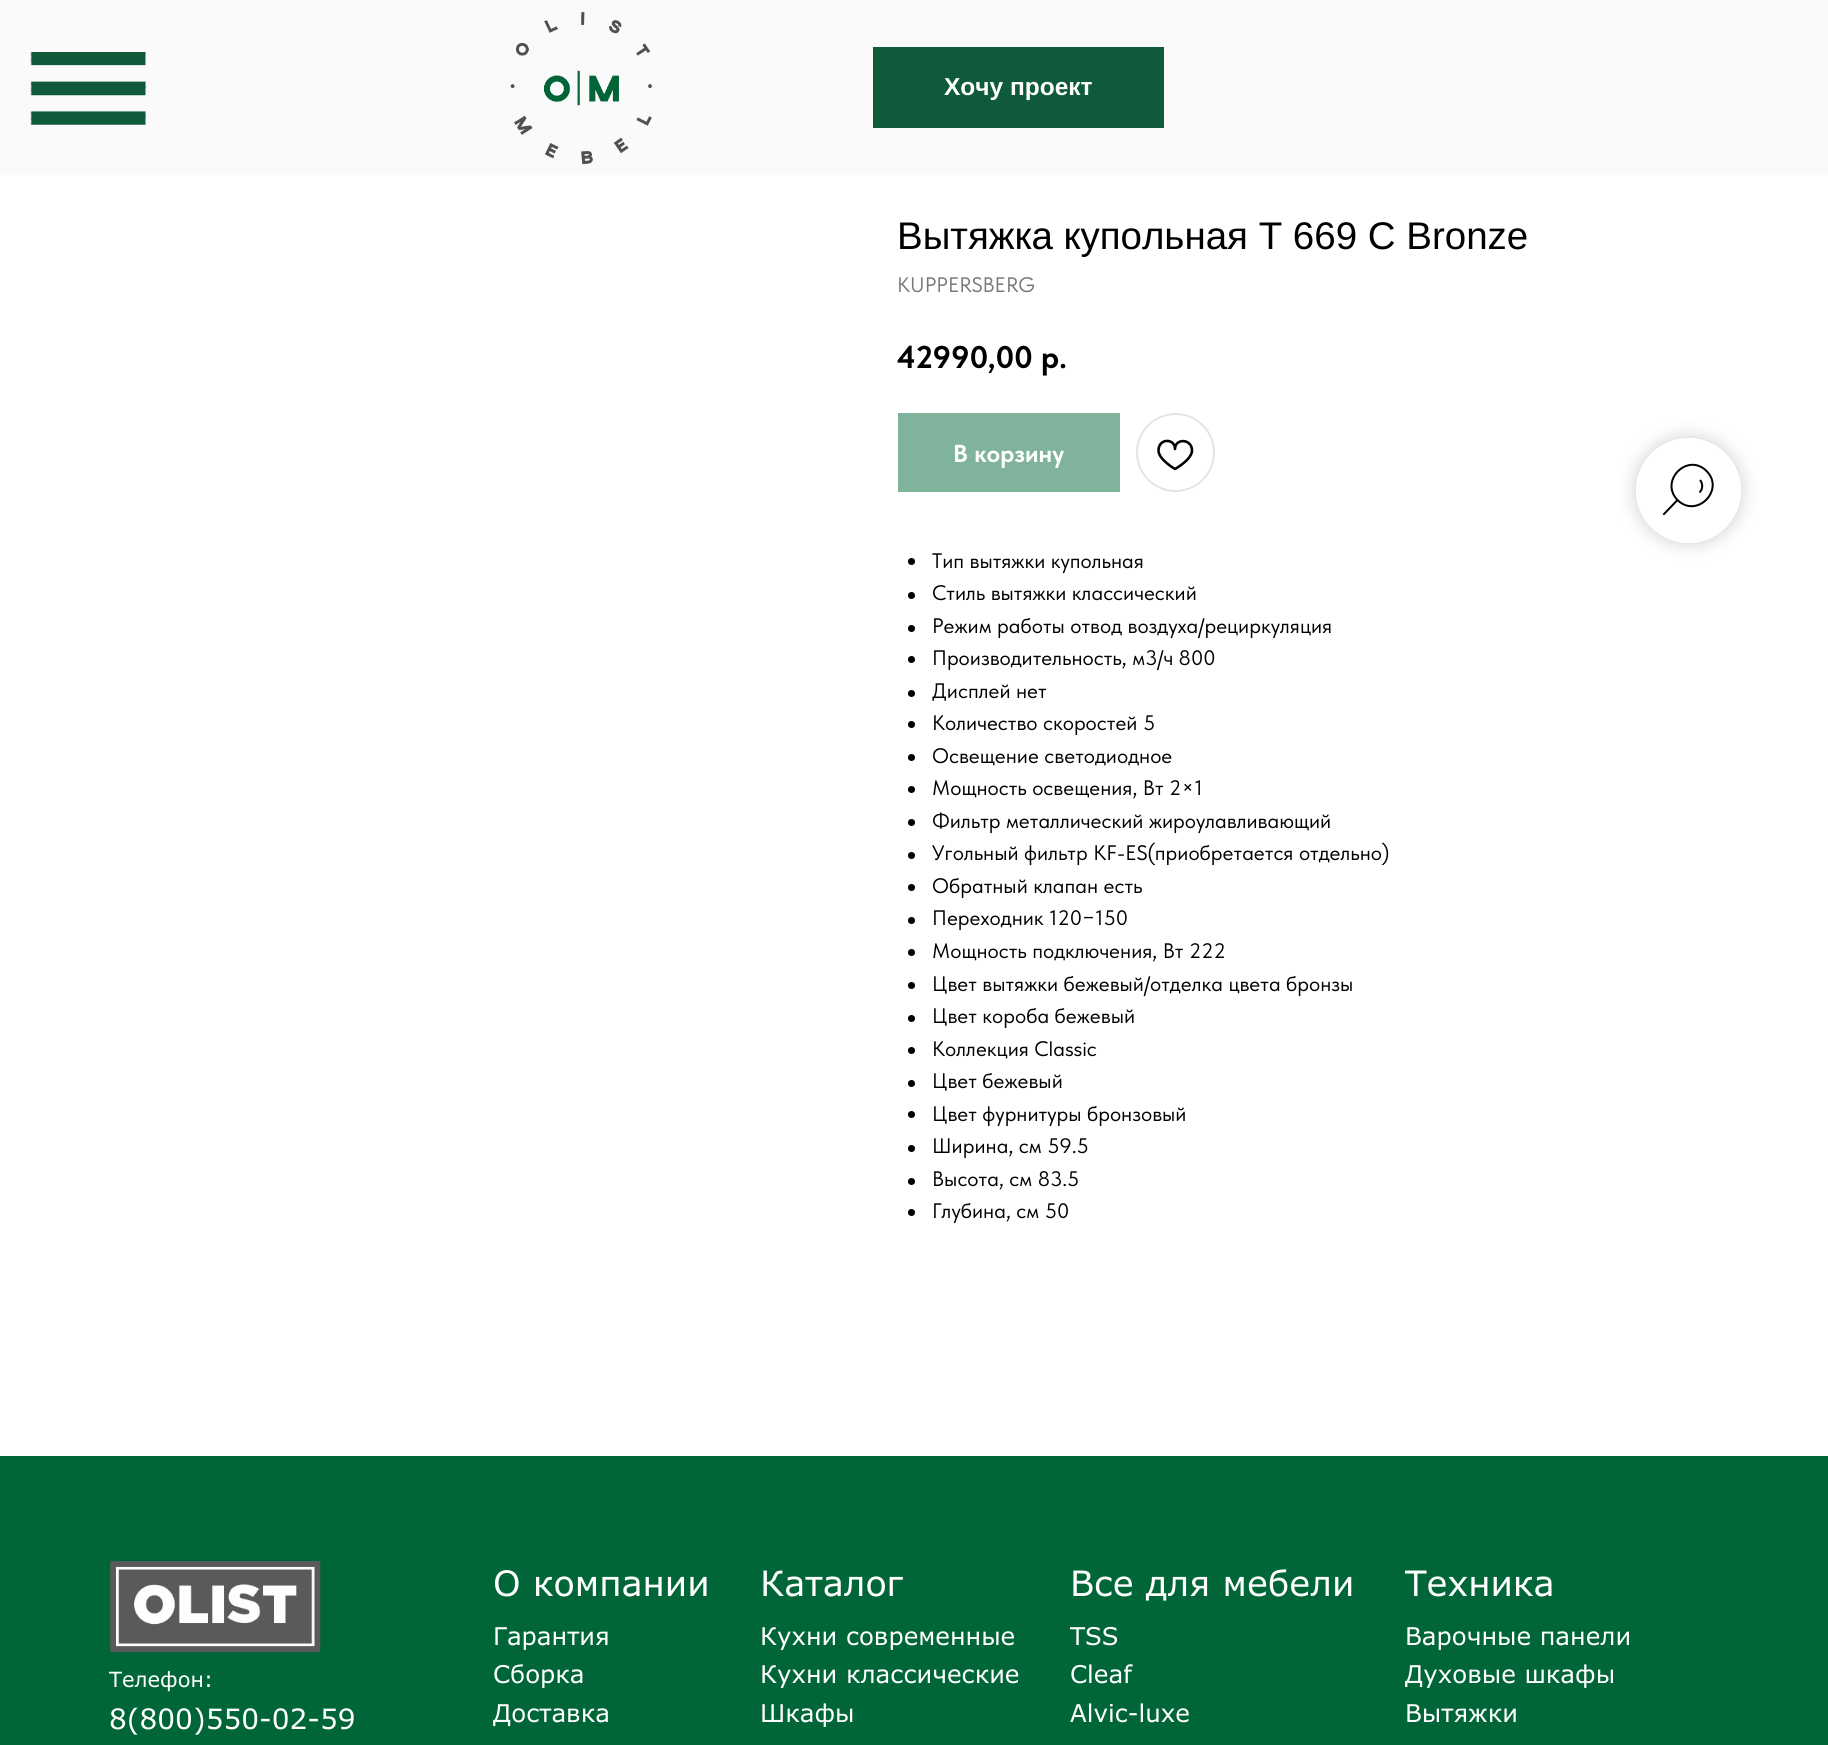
#include <cairo.h>
#include <math.h>
#include <stddef.h>


static void round_rect(cairo_t *cr, double x, double y, double w, double h, double r) {
    cairo_new_sub_path(cr);
    cairo_arc(cr, x + w - r, y + h - r, r, 0, M_PI / 2);
    cairo_arc(cr, x + r, y + h - r, r, M_PI / 2, M_PI);
    cairo_arc(cr, x + r, y + r, r, M_PI, 1.5 * M_PI);
    cairo_arc(cr, x + w - r, y + r, r, 1.5 * M_PI, 2 * M_PI);
    cairo_close_path(cr);
}

static void shadow(cairo_t *cr, double x, double y, double w, double h, double r, double blur, double alpha) {
    cairo_push_group_with_content(cr, CAIRO_CONTENT_ALPHA);
    cairo_set_operator(cr, CAIRO_OPERATOR_SOURCE);
    for (int i = 15; i >= -15 && fmin(w, h) + blur * i / 3 > 0; i -= 2) {
        double e = blur * i / 6;
        cairo_set_source_rgba(cr, 0, 0, 0, alpha * erfc((i - 1) / 8.5) / 2);
        round_rect(cr, x - e, y - e, w + 2 * e, h + 2 * e, fmax(0, fmin(r + e + blur * .6, fmin(w, h) / 2 + e)));
        cairo_fill(cr);
    }
    cairo_pattern_t *soft = cairo_pop_group(cr);
    cairo_mask(cr, soft);
    cairo_pattern_destroy(soft);
}

static void picture(cairo_t *cr, const char *path, double x, double y, double w, double h) {
    cairo_surface_t *image = cairo_image_surface_create_from_png(path);
    cairo_save(cr);
    cairo_set_source_surface(cr, image, x, y);
    cairo_rectangle(cr, x, y, w, h);
    cairo_fill(cr);
    cairo_restore(cr);
    cairo_surface_destroy(image);
}

int main(void) {
    cairo_surface_t *surface = cairo_image_surface_create(CAIRO_FORMAT_RGB24, 1828, 1745);
    cairo_t *cr = cairo_create(surface);
    cairo_font_options_t *options = cairo_font_options_create();
    cairo_font_options_set_hint_metrics(options, CAIRO_HINT_METRICS_OFF);
    cairo_font_options_set_hint_style(options, CAIRO_HINT_STYLE_NONE);
    cairo_set_font_options(cr, options);
    cairo_set_miter_limit(cr, 4);
    cairo_set_source_rgb(cr, 1, 1, 1);
    cairo_paint(cr);
    cairo_set_source_rgb(cr, 0.98, 0.98, 0.98);
    cairo_rectangle(cr, 0, 0, 1828, 175);
    cairo_fill(cr);
    picture(cr, "img1.png", 30, 52, 117, 73);
    picture(cr, "img2.png", 510, 11, 142, 154);
    cairo_set_source_rgb(cr, 0.059, 0.353, 0.231);
    cairo_rectangle(cr, 873, 47, 291, 81);
    cairo_fill(cr);
    cairo_select_font_face(cr, "Liberation Sans", CAIRO_FONT_SLANT_NORMAL, CAIRO_FONT_WEIGHT_BOLD);
    cairo_set_font_size(cr, 24.5);
    cairo_set_source_rgb(cr, 1, 1, 1);
    cairo_move_to(cr, 944, 95);
    cairo_show_text(cr, "Хочу проект");
    cairo_select_font_face(cr, "Liberation Sans", CAIRO_FONT_SLANT_NORMAL, CAIRO_FONT_WEIGHT_NORMAL);
    cairo_set_font_size(cr, 38.5);
    cairo_set_source_rgb(cr, 0, 0, 0);
    cairo_move_to(cr, 897, 249);
    cairo_show_text(cr, "Вытяжка купольная T 669 C Bronze");
    cairo_select_font_face(cr, "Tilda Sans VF", CAIRO_FONT_SLANT_NORMAL, CAIRO_FONT_WEIGHT_NORMAL);
    cairo_set_font_size(cr, 21);
    cairo_set_source_rgb(cr, 0.467, 0.467, 0.467);
    cairo_move_to(cr, 897, 292);
    cairo_show_text(cr, "KUPPERSBERG");
    cairo_select_font_face(cr, "Tilda Sans VF", CAIRO_FONT_SLANT_NORMAL, CAIRO_FONT_WEIGHT_BOLD);
    cairo_set_font_size(cr, 31.5);
    cairo_set_source_rgb(cr, 0, 0, 0);
    cairo_move_to(cr, 897, 368);
    cairo_show_text(cr, "42990,00");
    cairo_move_to(cr, 1041, 368);
    cairo_show_text(cr, "р.");
    cairo_set_source_rgb(cr, 0.502, 0.702, 0.608);
    cairo_rectangle(cr, 898, 413, 222, 79);
    cairo_fill(cr);
    cairo_set_font_size(cr, 24.5);
    cairo_set_source_rgb(cr, 1, 1, 1);
    cairo_move_to(cr, 953, 462);
    cairo_show_text(cr, "В корзину");
    cairo_new_path(cr);
    cairo_arc(cr, 1175.5, 452.5, 38.5, 0, 2 * M_PI);
    cairo_set_source_rgb(cr, 0.894, 0.894, 0.894);
    cairo_stroke(cr);
    cairo_new_path(cr);
    cairo_move_to(cr, 1192, 450.5);
    cairo_curve_to(cr, 1192, 459.5, 1175, 469, 1175, 469);
    cairo_curve_to(cr, 1175, 469, 1158.5, 459.5, 1158.5, 450.5);
    cairo_curve_to(cr, 1158.5, 438, 1175, 438, 1175, 449);
    cairo_curve_to(cr, 1175, 438, 1192, 438.5, 1192, 450.5);
    cairo_close_path(cr);
    cairo_set_source_rgb(cr, 0, 0, 0);
    cairo_set_line_width(cr, 2.6);
    cairo_set_line_join(cr, CAIRO_LINE_JOIN_ROUND);
    cairo_stroke(cr);
    cairo_arc(cr, 911.5, 561.5, 3.5, 0, 2 * M_PI);
    cairo_fill(cr);
    cairo_select_font_face(cr, "Tilda Sans VF", CAIRO_FONT_SLANT_NORMAL, CAIRO_FONT_WEIGHT_NORMAL);
    cairo_set_font_size(cr, 21);
    cairo_move_to(cr, 932, 568);
    cairo_show_text(cr, "Тип вытяжки купольная");
    cairo_new_path(cr);
    cairo_arc(cr, 911.5, 595.5, 3.5, 0, 2 * M_PI);
    cairo_fill(cr);
    cairo_move_to(cr, 932, 600);
    cairo_show_text(cr, "Стиль вытяжки классический");
    cairo_new_path(cr);
    cairo_arc(cr, 911.5, 628.5, 3.5, 0, 2 * M_PI);
    cairo_fill(cr);
    cairo_move_to(cr, 932, 633);
    cairo_show_text(cr, "Режим работы отвод воздуха/рециркуляция");
    cairo_new_path(cr);
    cairo_arc(cr, 911.5, 659.5, 3.5, 0, 2 * M_PI);
    cairo_fill(cr);
    cairo_move_to(cr, 932, 665);
    cairo_show_text(cr, "Производительность, м3/ч 800");
    cairo_new_path(cr);
    cairo_arc(cr, 911.5, 693.5, 3.5, 0, 2 * M_PI);
    cairo_fill(cr);
    cairo_move_to(cr, 932, 698);
    cairo_show_text(cr, "Дисплей нет");
    cairo_new_path(cr);
    cairo_arc(cr, 911.5, 724.5, 3.5, 0, 2 * M_PI);
    cairo_fill(cr);
    cairo_move_to(cr, 932, 730);
    cairo_show_text(cr, "Количество скоростей 5");
    cairo_new_path(cr);
    cairo_arc(cr, 911.5, 757.5, 3.5, 0, 2 * M_PI);
    cairo_fill(cr);
    cairo_move_to(cr, 932, 763);
    cairo_show_text(cr, "Освещение светодиодное");
    cairo_new_path(cr);
    cairo_arc(cr, 911.5, 789.5, 3.5, 0, 2 * M_PI);
    cairo_fill(cr);
    cairo_move_to(cr, 932, 795);
    cairo_show_text(cr, "Мощность освещения, Вт 2×1");
    cairo_new_path(cr);
    cairo_arc(cr, 911.5, 822.5, 3.5, 0, 2 * M_PI);
    cairo_fill(cr);
    cairo_move_to(cr, 932, 828);
    cairo_show_text(cr, "Фильтр металлический жироулавливающий");
    cairo_new_path(cr);
    cairo_arc(cr, 911.5, 855.5, 3.5, 0, 2 * M_PI);
    cairo_fill(cr);
    cairo_move_to(cr, 932, 860);
    cairo_show_text(cr, "Угольный фильтр KF-ES(приобретается отдельно)");
    cairo_new_path(cr);
    cairo_arc(cr, 911.5, 887.5, 3.5, 0, 2 * M_PI);
    cairo_fill(cr);
    cairo_move_to(cr, 932, 893);
    cairo_show_text(cr, "Обратный клапан есть");
    cairo_new_path(cr);
    cairo_arc(cr, 911.5, 920.5, 3.5, 0, 2 * M_PI);
    cairo_fill(cr);
    cairo_move_to(cr, 932, 925);
    cairo_show_text(cr, "Переходник 120−150");
    cairo_new_path(cr);
    cairo_arc(cr, 911.5, 952.5, 3.5, 0, 2 * M_PI);
    cairo_fill(cr);
    cairo_move_to(cr, 932, 958);
    cairo_show_text(cr, "Мощность подключения, Вт 222");
    cairo_new_path(cr);
    cairo_arc(cr, 911.5, 985.5, 3.5, 0, 2 * M_PI);
    cairo_fill(cr);
    cairo_move_to(cr, 932, 991);
    cairo_show_text(cr, "Цвет вытяжки бежевый/отделка цвета бронзы");
    cairo_new_path(cr);
    cairo_arc(cr, 911.5, 1018.5, 3.5, 0, 2 * M_PI);
    cairo_fill(cr);
    cairo_move_to(cr, 932, 1023);
    cairo_show_text(cr, "Цвет короба бежевый");
    cairo_new_path(cr);
    cairo_arc(cr, 911.5, 1050.5, 3.5, 0, 2 * M_PI);
    cairo_fill(cr);
    cairo_move_to(cr, 932, 1056);
    cairo_show_text(cr, "Коллекция Classic");
    cairo_new_path(cr);
    cairo_arc(cr, 911.5, 1083.5, 3.5, 0, 2 * M_PI);
    cairo_fill(cr);
    cairo_move_to(cr, 932, 1088);
    cairo_show_text(cr, "Цвет бежевый");
    cairo_new_path(cr);
    cairo_arc(cr, 911.5, 1114.5, 3.5, 0, 2 * M_PI);
    cairo_fill(cr);
    cairo_move_to(cr, 932, 1121);
    cairo_show_text(cr, "Цвет фурнитуры бронзовый");
    cairo_new_path(cr);
    cairo_arc(cr, 911.5, 1148.5, 3.5, 0, 2 * M_PI);
    cairo_fill(cr);
    cairo_move_to(cr, 932, 1153);
    cairo_show_text(cr, "Ширина, см 59.5");
    cairo_new_path(cr);
    cairo_arc(cr, 911.5, 1181.5, 3.5, 0, 2 * M_PI);
    cairo_fill(cr);
    cairo_move_to(cr, 932, 1186);
    cairo_show_text(cr, "Высота, см 83.5");
    cairo_new_path(cr);
    cairo_arc(cr, 911.5, 1212.5, 3.5, 0, 2 * M_PI);
    cairo_fill(cr);
    cairo_move_to(cr, 932, 1218);
    cairo_show_text(cr, "Глубина, см 50");
    cairo_save(cr);
    cairo_set_fill_rule(cr, CAIRO_FILL_RULE_EVEN_ODD);
    cairo_new_path(cr);
    cairo_move_to(cr, 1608, 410);
    cairo_line_to(cr, 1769, 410);
    cairo_line_to(cr, 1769, 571);
    cairo_line_to(cr, 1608, 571);
    cairo_close_path(cr);
    cairo_move_to(cr, 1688.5, 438);
    cairo_curve_to(cr, 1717.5, 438, 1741, 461.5, 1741, 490.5);
    cairo_curve_to(cr, 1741, 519.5, 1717.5, 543, 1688.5, 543);
    cairo_curve_to(cr, 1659.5, 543, 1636, 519.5, 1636, 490.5);
    cairo_curve_to(cr, 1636, 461.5, 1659.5, 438, 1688.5, 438);
    cairo_close_path(cr);
    cairo_clip(cr);
    cairo_set_source_rgb(cr, 0, 0, 0);
    shadow(cr, 1636, 438, 105, 105, 52.5, 9, 0.2);
    cairo_restore(cr);
    cairo_set_source_rgba(cr, 1, 1, 1, 0.8);
    cairo_arc(cr, 1688.5, 490.5, 52.5, 0, 2 * M_PI);
    cairo_fill(cr);
    cairo_new_path(cr);
    cairo_move_to(cr, 1677, 500.5);
    cairo_line_to(cr, 1664, 514);
    cairo_set_source_rgb(cr, 0, 0, 0);
    cairo_set_line_width(cr, 2);
    cairo_set_line_cap(cr, CAIRO_LINE_CAP_SQUARE);
    cairo_set_line_join(cr, CAIRO_LINE_JOIN_MITER);
    cairo_stroke(cr);
    cairo_new_path(cr);
    cairo_move_to(cr, 1706.5, 471);
    cairo_curve_to(cr, 1725.5, 490, 1696.5, 519, 1677.5, 500);
    cairo_curve_to(cr, 1659, 481, 1687.5, 452, 1706.5, 471);
    cairo_close_path(cr);
    cairo_move_to(cr, 1700, 480);
    cairo_curve_to(cr, 1703, 483.5, 1703, 489, 1699.5, 492.5);
    cairo_set_line_cap(cr, CAIRO_LINE_CAP_BUTT);
    cairo_stroke(cr);
    cairo_set_source_rgb(cr, 0, 0.4, 0.216);
    cairo_rectangle(cr, 0, 1456, 1828, 289);
    cairo_fill(cr);
    picture(cr, "img3.png", 110, 1561, 211, 91);
    cairo_select_font_face(cr, "Verdana", CAIRO_FONT_SLANT_NORMAL, CAIRO_FONT_WEIGHT_NORMAL);
    cairo_set_source_rgb(cr, 1, 1, 1);
    cairo_move_to(cr, 109, 1687);
    cairo_show_text(cr, "Телефон:");
    cairo_set_font_size(cr, 28);
    cairo_move_to(cr, 109, 1729);
    cairo_show_text(cr, "8(800)550-02-59");
    cairo_set_font_size(cr, 35);
    cairo_move_to(cr, 493, 1596);
    cairo_show_text(cr, "О компании");
    cairo_set_font_size(cr, 24.5);
    cairo_move_to(cr, 493, 1645);
    cairo_show_text(cr, "Гарантия");
    cairo_move_to(cr, 493, 1683);
    cairo_show_text(cr, "Сборка");
    cairo_move_to(cr, 493, 1722);
    cairo_show_text(cr, "Доставка");
    cairo_set_font_size(cr, 35);
    cairo_move_to(cr, 760, 1596);
    cairo_show_text(cr, "Каталог");
    cairo_set_font_size(cr, 24.5);
    cairo_move_to(cr, 760, 1645);
    cairo_show_text(cr, "Кухни современные");
    cairo_move_to(cr, 760, 1683);
    cairo_show_text(cr, "Кухни классические");
    cairo_move_to(cr, 760, 1722);
    cairo_show_text(cr, "Шкафы");
    cairo_set_font_size(cr, 35);
    cairo_move_to(cr, 1070, 1596);
    cairo_show_text(cr, "Все для мебели");
    cairo_set_font_size(cr, 24.5);
    cairo_move_to(cr, 1070, 1645);
    cairo_show_text(cr, "TSS");
    cairo_move_to(cr, 1070, 1683);
    cairo_show_text(cr, "Cleaf");
    cairo_move_to(cr, 1070, 1722);
    cairo_show_text(cr, "Alvic-luxe");
    cairo_set_font_size(cr, 35);
    cairo_move_to(cr, 1405, 1596);
    cairo_show_text(cr, "Техника");
    cairo_set_font_size(cr, 24.5);
    cairo_move_to(cr, 1405, 1645);
    cairo_show_text(cr, "Варочные панели");
    cairo_move_to(cr, 1405, 1683);
    cairo_show_text(cr, "Духовые шкафы");
    cairo_move_to(cr, 1405, 1722);
    cairo_show_text(cr, "Вытяжки");
    cairo_surface_write_to_png(surface, "page.png");
    cairo_font_options_destroy(options);
    cairo_destroy(cr);
    cairo_surface_destroy(surface);
    return 0;
}
